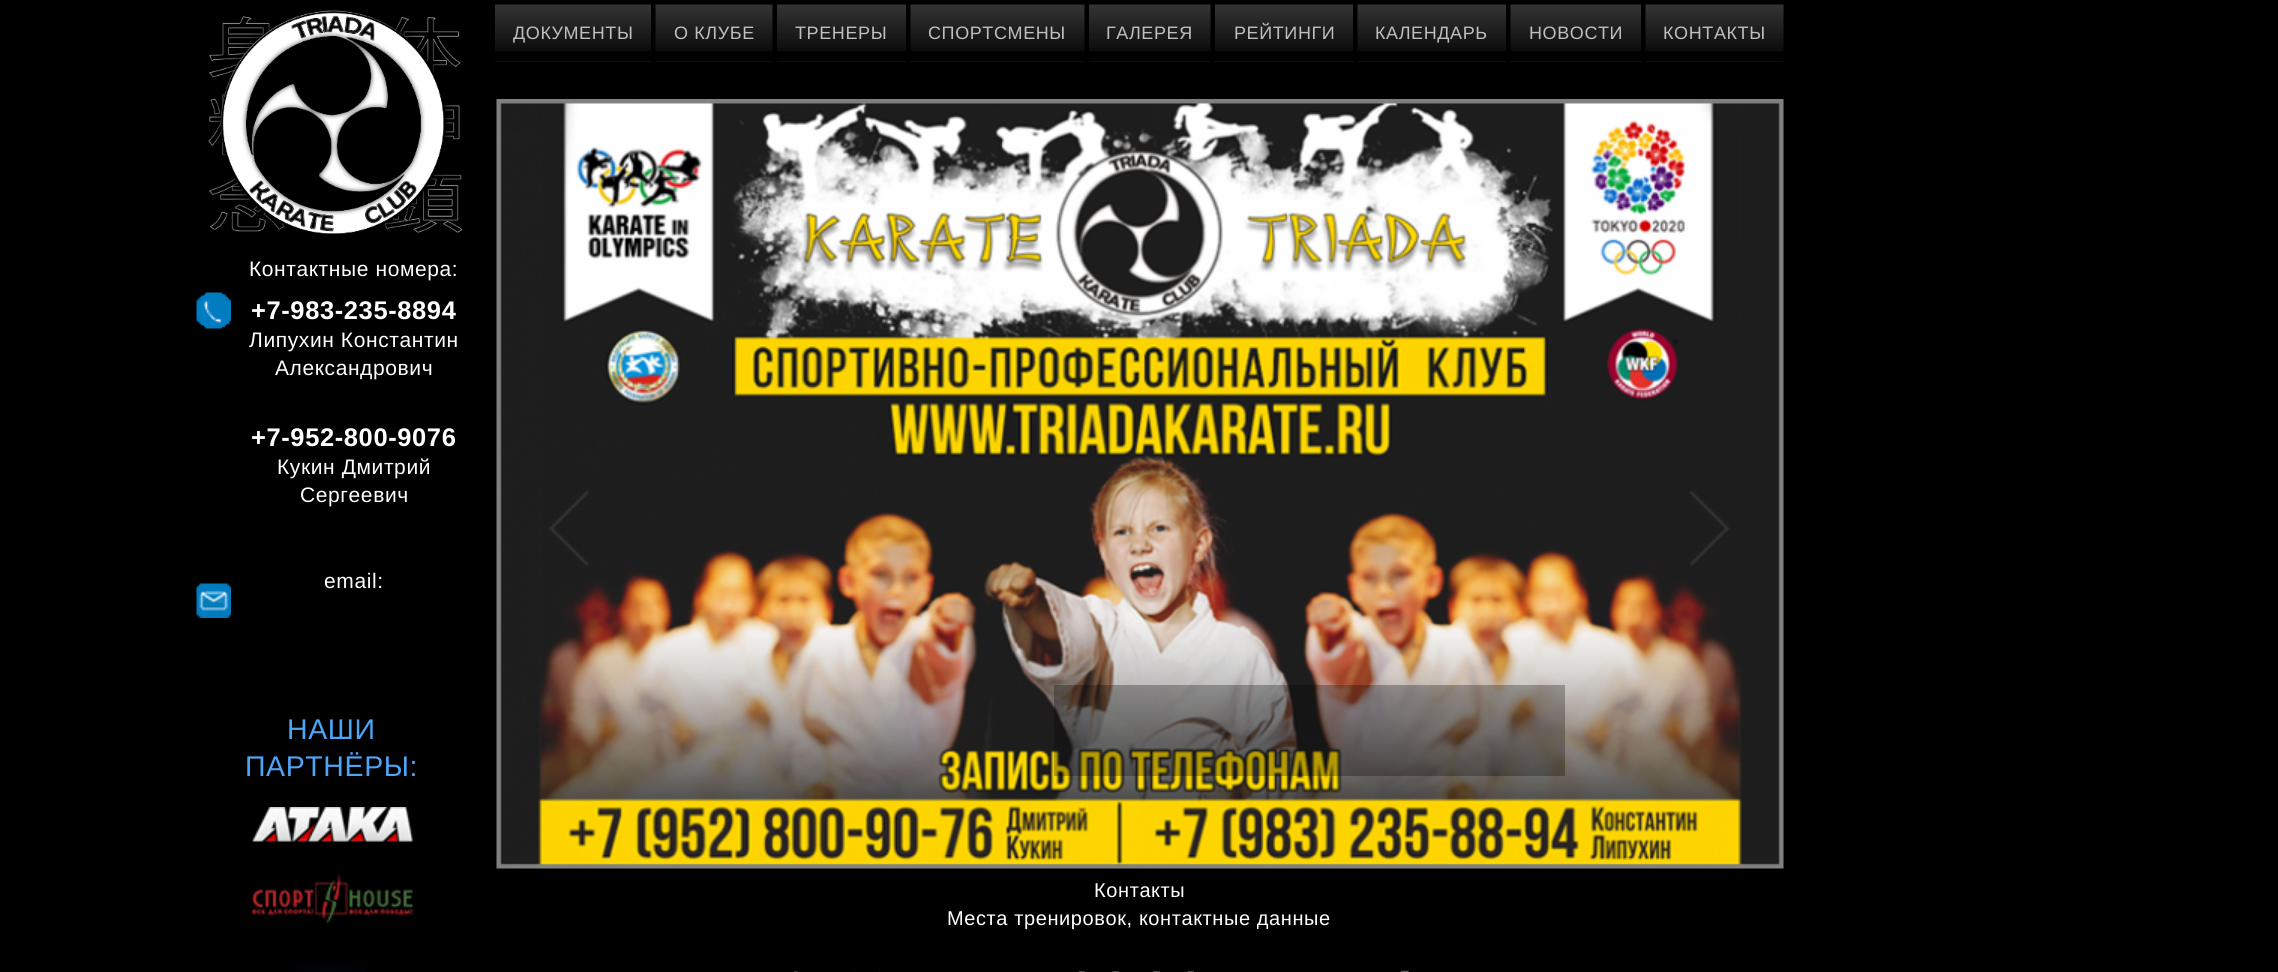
#include <cairo.h>
#include <math.h>
#include <stddef.h>


static void spaced_text(cairo_t *cr, double x, double y, const char *s, double letter, double word) {
    cairo_move_to(cr, x, y);
    while (*s) {
        char ch[5] = {0};
        int n = 0;
        do ch[n++] = *s++; while ((*s & 0xC0) == 0x80);
        cairo_show_text(cr, ch);
        cairo_rel_move_to(cr, letter + word * (*ch == ' '), 0);
    }
}

static void picture(cairo_t *cr, const char *path, double x, double y, double w, double h) {
    cairo_surface_t *image = cairo_image_surface_create_from_png(path);
    cairo_save(cr);
    cairo_set_source_surface(cr, image, x, y);
    cairo_rectangle(cr, x, y, w, h);
    cairo_fill(cr);
    cairo_restore(cr);
    cairo_surface_destroy(image);
}

int main(void) {
    cairo_surface_t *surface = cairo_image_surface_create(CAIRO_FORMAT_RGB24, 2278, 972);
    cairo_t *cr = cairo_create(surface);
    cairo_font_options_t *options = cairo_font_options_create();
    cairo_font_options_set_hint_metrics(options, CAIRO_HINT_METRICS_OFF);
    cairo_font_options_set_hint_style(options, CAIRO_HINT_STYLE_NONE);
    cairo_set_font_options(cr, options);
    cairo_set_miter_limit(cr, 4);
    cairo_set_source_rgb(cr, 0, 0, 0);
    cairo_paint(cr);
    picture(cr, "img1.png", 208, 10, 255, 224);
    picture(cr, "img2.png", 495, 4, 156, 58);
    cairo_select_font_face(cr, "Liberation Sans", CAIRO_FONT_SLANT_NORMAL, CAIRO_FONT_WEIGHT_NORMAL);
    cairo_set_font_size(cr, 18);
    cairo_set_source_rgb(cr, 0.749, 0.749, 0.749);
    spaced_text(cr, 513, 39, "ДОКУМЕНТЫ", 0.6, 0);
    picture(cr, "img3.png", 655, 4, 118, 58);
    spaced_text(cr, 674, 39, "О КЛУБЕ", 0.6, 0);
    picture(cr, "img4.png", 777, 4, 129, 58);
    spaced_text(cr, 795, 39, "ТРЕНЕРЫ", 0.6, 0);
    picture(cr, "img5.png", 910, 4, 175, 58);
    spaced_text(cr, 928, 39, "СПОРТСМЕНЫ", 0.6, 0);
    picture(cr, "img6.png", 1089, 4, 122, 58);
    spaced_text(cr, 1106, 39, "ГАЛЕРЕЯ", 0.6, 0);
    picture(cr, "img7.png", 1215, 4, 138, 58);
    spaced_text(cr, 1234, 39, "РЕЙТИНГИ", 0.6, 0);
    picture(cr, "img8.png", 1357, 4, 149, 58);
    spaced_text(cr, 1375, 39, "КАЛЕНДАРЬ", 0.6, 0);
    picture(cr, "img9.png", 1510, 4, 131, 58);
    spaced_text(cr, 1529, 39, "НОВОСТИ", 0.6, 0);
    picture(cr, "img10.png", 1645, 4, 139, 58);
    spaced_text(cr, 1663, 39, "КОНТАКТЫ", 0.6, 0);
    picture(cr, "img11.png", 196, 292, 35, 37);
    picture(cr, "img12.png", 196, 583, 35, 35);
    cairo_set_font_size(cr, 21);
    cairo_set_source_rgb(cr, 1, 1, 1);
    spaced_text(cr, 249, 276, "Контактные номера:", 0.6, 0);
    cairo_select_font_face(cr, "Liberation Sans", CAIRO_FONT_SLANT_NORMAL, CAIRO_FONT_WEIGHT_BOLD);
    cairo_set_font_size(cr, 25.5);
    spaced_text(cr, 251, 319, "+7-983-235-8894", 0.6, 0);
    cairo_select_font_face(cr, "Liberation Sans", CAIRO_FONT_SLANT_NORMAL, CAIRO_FONT_WEIGHT_NORMAL);
    cairo_set_font_size(cr, 21);
    spaced_text(cr, 249, 347, "Липухин Константин", 0.6, 0);
    spaced_text(cr, 275, 375, "Александрович", 0.6, 0);
    cairo_select_font_face(cr, "Liberation Sans", CAIRO_FONT_SLANT_NORMAL, CAIRO_FONT_WEIGHT_BOLD);
    cairo_set_font_size(cr, 25.5);
    spaced_text(cr, 251, 446, "+7-952-800-9076", 0.6, 0);
    cairo_select_font_face(cr, "Liberation Sans", CAIRO_FONT_SLANT_NORMAL, CAIRO_FONT_WEIGHT_NORMAL);
    cairo_set_font_size(cr, 21);
    spaced_text(cr, 277, 474, "Кукин Дмитрий", 0.6, 0);
    spaced_text(cr, 300, 502, "Сергеевич", 0.6, 0);
    spaced_text(cr, 324, 588, "email:", 0.6, 0);
    cairo_set_font_size(cr, 28.5);
    cairo_set_source_rgb(cr, 0.302, 0.647, 0.965);
    spaced_text(cr, 287, 739, "НАШИ", 0.6, 0);
    spaced_text(cr, 245, 776, "ПАРТНЁРЫ:", 0.6, 0);
    picture(cr, "img13.png", 252, 807, 161, 35);
    picture(cr, "img14.png", 252, 874, 161, 50);
    picture(cr, "img15.png", 293, 962, 73, 10);
    picture(cr, "img18.png", 496, 99, 1288, 770);
    picture(cr, "img16.png", 549, 490, 40, 76);
    picture(cr, "img17.png", 1689, 490, 41, 76);
    cairo_set_source_rgba(cr, 0, 0, 0, 0.28);
    cairo_rectangle(cr, 1054, 685, 511, 91);
    cairo_fill(cr);
    cairo_set_font_size(cr, 20);
    cairo_set_source_rgb(cr, 1, 1, 1);
    spaced_text(cr, 1094, 897, "Контакты", 0.6, 0);
    spaced_text(cr, 947, 925, "Места тренировок, контактные данные", 0.6, 0);
    picture(cr, "img19.png", 794, 970, 88, 2);
    picture(cr, "img20.png", 1078, 970, 116, 2);
    picture(cr, "img21.png", 1400, 970, 9, 2);
    cairo_surface_write_to_png(surface, "page.png");
    cairo_font_options_destroy(options);
    cairo_destroy(cr);
    cairo_surface_destroy(surface);
    return 0;
}
